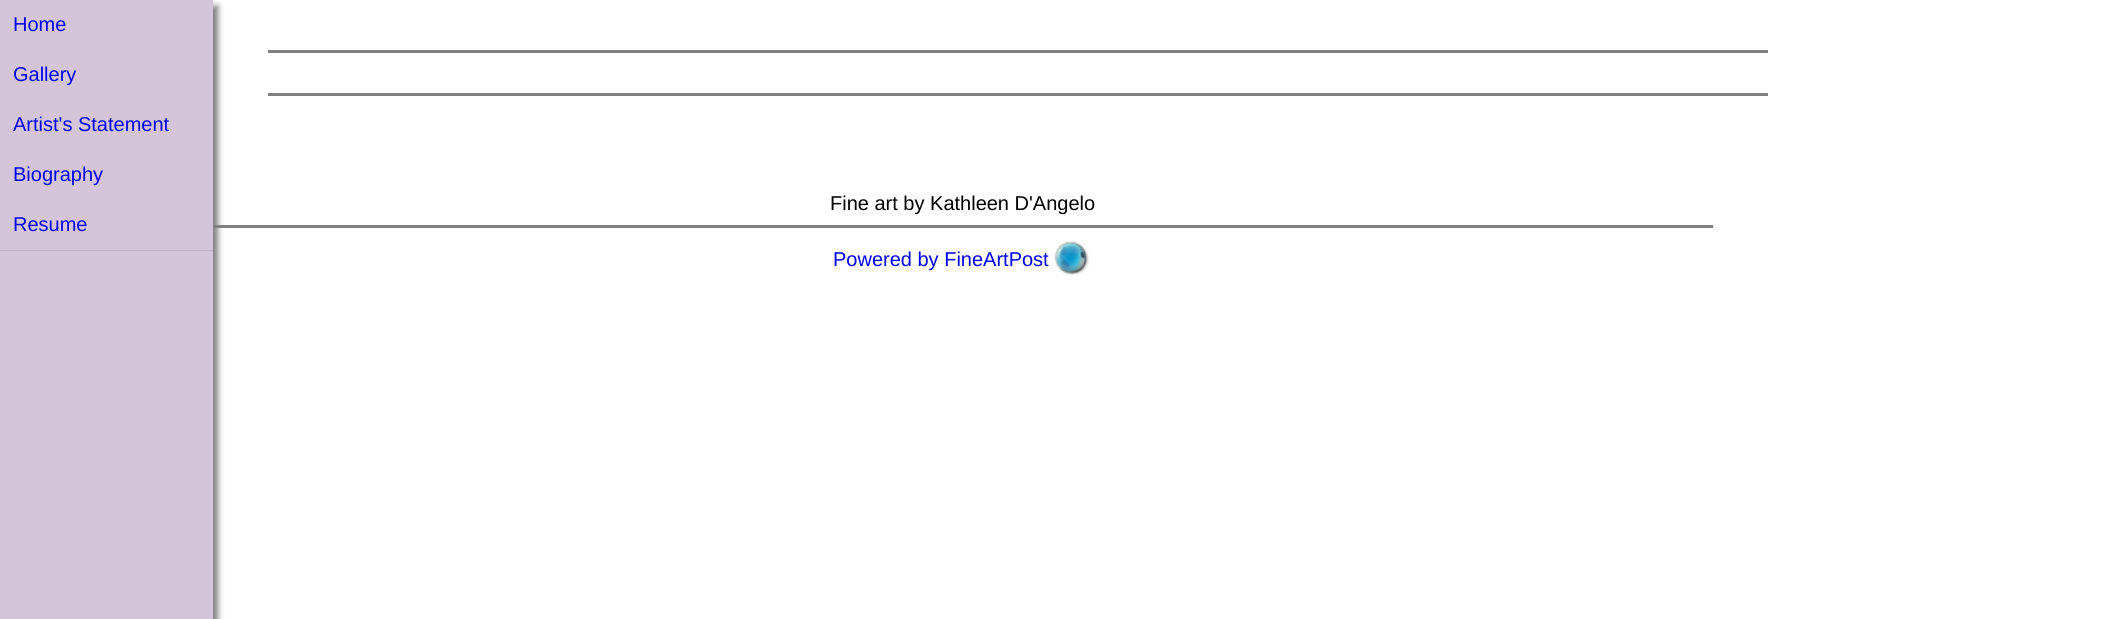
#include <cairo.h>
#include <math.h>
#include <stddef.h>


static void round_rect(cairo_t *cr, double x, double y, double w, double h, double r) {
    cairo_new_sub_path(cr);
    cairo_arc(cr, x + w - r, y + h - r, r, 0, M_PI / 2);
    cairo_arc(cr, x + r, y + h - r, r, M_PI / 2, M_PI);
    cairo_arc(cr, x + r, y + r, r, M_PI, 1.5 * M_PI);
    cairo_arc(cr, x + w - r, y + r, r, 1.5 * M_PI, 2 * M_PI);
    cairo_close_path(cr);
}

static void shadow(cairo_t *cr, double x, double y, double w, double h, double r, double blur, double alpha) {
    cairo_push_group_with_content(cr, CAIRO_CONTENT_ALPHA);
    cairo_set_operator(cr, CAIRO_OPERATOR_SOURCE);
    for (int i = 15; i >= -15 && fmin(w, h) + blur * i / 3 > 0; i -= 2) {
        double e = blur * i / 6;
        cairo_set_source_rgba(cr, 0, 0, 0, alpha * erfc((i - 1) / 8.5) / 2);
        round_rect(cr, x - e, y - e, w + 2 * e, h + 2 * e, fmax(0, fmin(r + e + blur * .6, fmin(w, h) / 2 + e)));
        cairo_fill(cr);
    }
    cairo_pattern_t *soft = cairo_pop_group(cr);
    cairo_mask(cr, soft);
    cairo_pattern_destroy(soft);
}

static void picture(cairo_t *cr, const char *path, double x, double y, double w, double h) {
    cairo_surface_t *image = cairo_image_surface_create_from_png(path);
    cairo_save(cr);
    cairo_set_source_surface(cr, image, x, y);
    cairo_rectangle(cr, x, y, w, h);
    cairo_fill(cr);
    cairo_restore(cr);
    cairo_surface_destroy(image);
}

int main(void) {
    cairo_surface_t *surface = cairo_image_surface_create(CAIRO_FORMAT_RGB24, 2123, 619);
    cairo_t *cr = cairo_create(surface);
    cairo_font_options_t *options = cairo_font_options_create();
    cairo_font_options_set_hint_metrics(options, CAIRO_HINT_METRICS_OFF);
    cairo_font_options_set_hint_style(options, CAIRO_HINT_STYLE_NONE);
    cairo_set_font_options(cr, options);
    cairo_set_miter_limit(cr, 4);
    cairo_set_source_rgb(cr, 1, 1, 1);
    cairo_paint(cr);
    cairo_set_source_rgb(cr, 0.502, 0.502, 0.502);
    cairo_rectangle(cr, 213, 225, 1500, 3);
    cairo_fill(cr);
    cairo_set_source_rgb(cr, 0.502, 0.502, 0.502);
    shadow(cr, 5, 6, 213, 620, 0, 3, 1);
    cairo_set_source_rgb(cr, 0.831, 0.773, 0.859);
    cairo_rectangle(cr, 0, 0, 213, 619);
    cairo_fill(cr);
    cairo_save(cr);
    cairo_set_fill_rule(cr, CAIRO_FILL_RULE_EVEN_ODD);
    cairo_new_path(cr);
    cairo_move_to(cr, 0, 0);
    cairo_line_to(cr, 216, 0);
    cairo_line_to(cr, 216, 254);
    cairo_line_to(cr, 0, 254);
    cairo_close_path(cr);
    cairo_move_to(cr, 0, 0);
    cairo_line_to(cr, 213, 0);
    cairo_line_to(cr, 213, 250);
    cairo_line_to(cr, 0, 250);
    cairo_close_path(cr);
    cairo_clip(cr);
    cairo_set_source_rgb(cr, 0, 0, 0);
    shadow(cr, 0, 1, 213, 250, 0, 0.5, 0.1);
    cairo_restore(cr);
    cairo_select_font_face(cr, "Liberation Sans", CAIRO_FONT_SLANT_NORMAL, CAIRO_FONT_WEIGHT_NORMAL);
    cairo_set_font_size(cr, 20);
    cairo_set_source_rgb(cr, 0, 0, 0.933);
    cairo_move_to(cr, 13, 31);
    cairo_show_text(cr, "Home");
    cairo_move_to(cr, 13, 81);
    cairo_show_text(cr, "Gallery");
    cairo_move_to(cr, 13, 131);
    cairo_show_text(cr, "Artist's Statement");
    cairo_move_to(cr, 13, 181);
    cairo_show_text(cr, "Biography");
    cairo_move_to(cr, 13, 231);
    cairo_show_text(cr, "Resume");
    cairo_set_source_rgb(cr, 0.502, 0.502, 0.502);
    cairo_rectangle(cr, 268, 50, 1500, 3);
    cairo_fill(cr);
    cairo_rectangle(cr, 268, 93, 1500, 3);
    cairo_fill(cr);
    cairo_set_source_rgb(cr, 0, 0, 0);
    cairo_move_to(cr, 830, 210);
    cairo_show_text(cr, "Fine art by Kathleen D'Angelo");
    cairo_set_source_rgb(cr, 0, 0, 0.933);
    cairo_move_to(cr, 833, 266);
    cairo_show_text(cr, "Powered by FineArtPost");
    picture(cr, "img1.png", 1054, 241, 35, 35);
    cairo_surface_write_to_png(surface, "page.png");
    cairo_font_options_destroy(options);
    cairo_destroy(cr);
    cairo_surface_destroy(surface);
    return 0;
}
